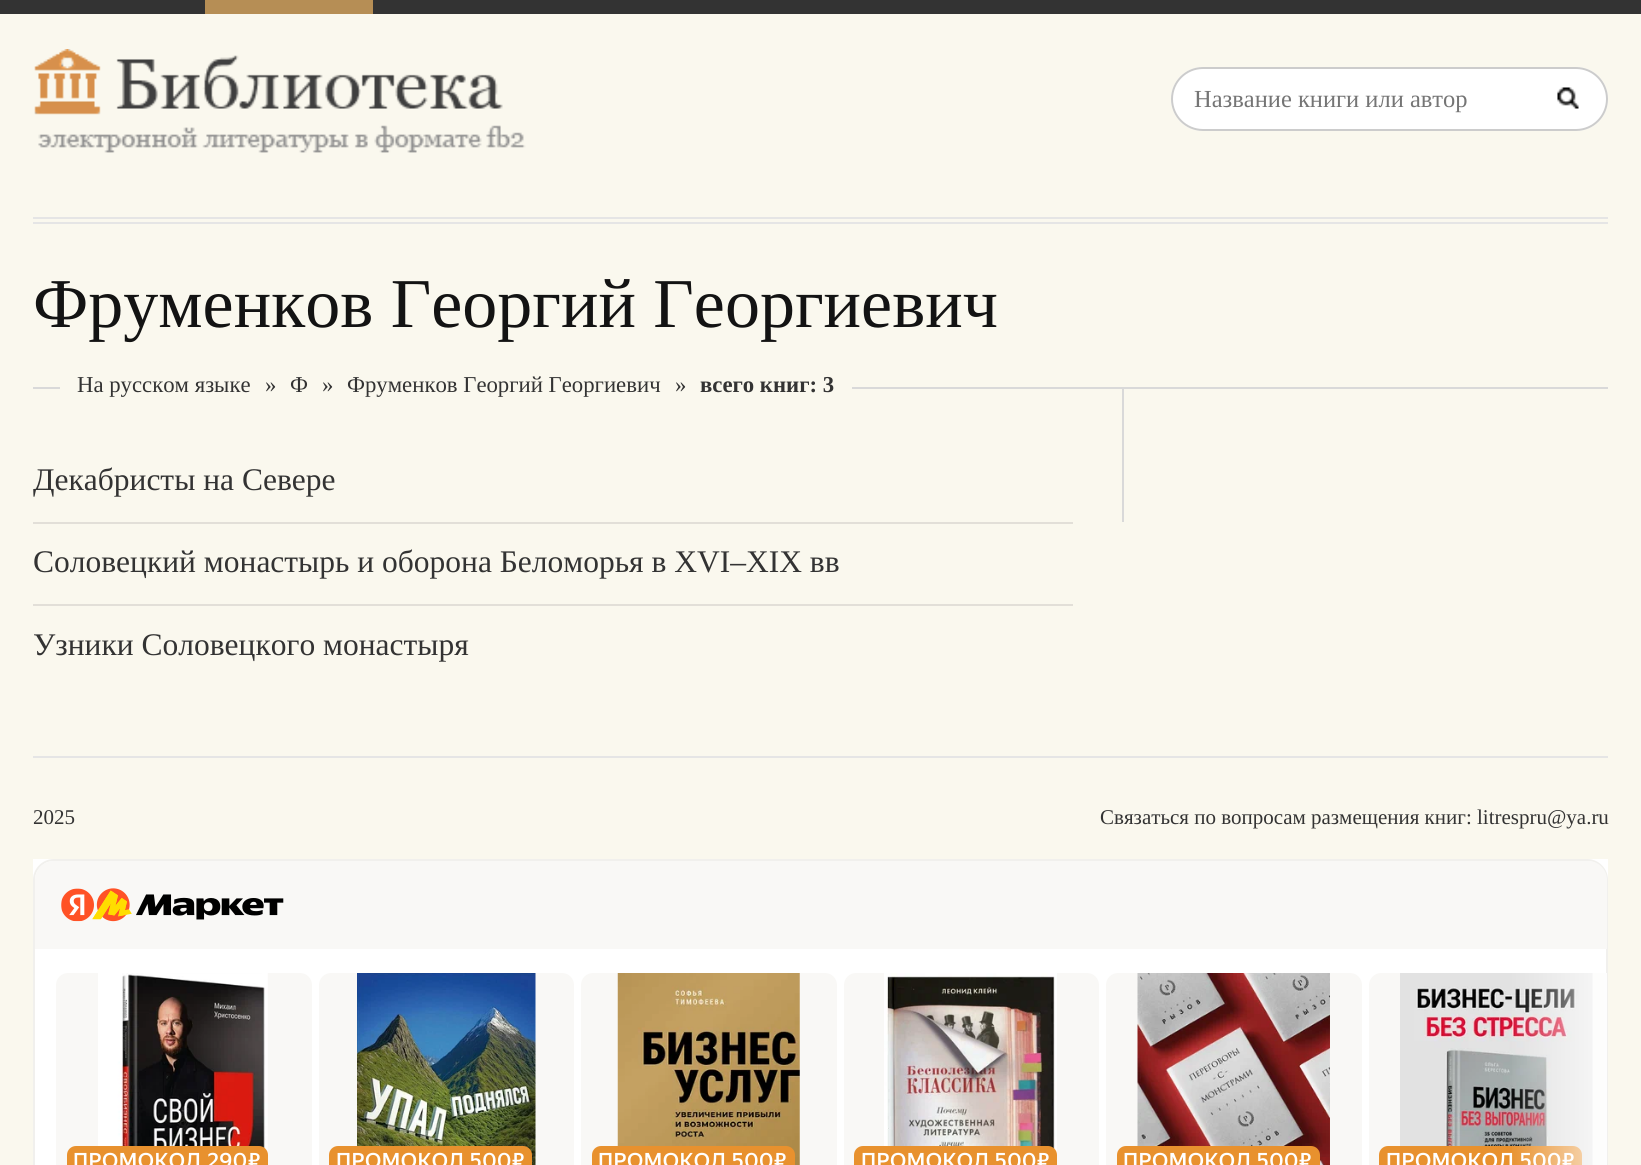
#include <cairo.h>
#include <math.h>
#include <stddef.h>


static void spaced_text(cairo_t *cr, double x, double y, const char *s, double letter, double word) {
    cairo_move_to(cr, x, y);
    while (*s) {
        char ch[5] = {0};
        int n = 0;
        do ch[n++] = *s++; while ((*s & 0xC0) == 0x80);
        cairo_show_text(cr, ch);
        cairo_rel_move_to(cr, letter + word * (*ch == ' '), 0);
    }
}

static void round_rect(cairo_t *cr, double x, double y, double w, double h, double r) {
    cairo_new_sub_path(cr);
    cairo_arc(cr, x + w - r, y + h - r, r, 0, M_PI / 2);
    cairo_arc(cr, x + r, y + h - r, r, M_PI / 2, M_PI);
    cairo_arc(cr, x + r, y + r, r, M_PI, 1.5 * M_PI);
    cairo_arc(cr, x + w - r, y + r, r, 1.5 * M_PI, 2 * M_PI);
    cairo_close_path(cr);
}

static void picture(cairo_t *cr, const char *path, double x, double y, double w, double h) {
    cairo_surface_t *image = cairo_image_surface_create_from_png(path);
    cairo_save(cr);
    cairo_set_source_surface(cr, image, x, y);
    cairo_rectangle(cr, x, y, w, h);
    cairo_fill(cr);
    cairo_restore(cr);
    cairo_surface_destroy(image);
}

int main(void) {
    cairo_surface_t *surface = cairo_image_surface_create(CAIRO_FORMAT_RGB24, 1641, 1165);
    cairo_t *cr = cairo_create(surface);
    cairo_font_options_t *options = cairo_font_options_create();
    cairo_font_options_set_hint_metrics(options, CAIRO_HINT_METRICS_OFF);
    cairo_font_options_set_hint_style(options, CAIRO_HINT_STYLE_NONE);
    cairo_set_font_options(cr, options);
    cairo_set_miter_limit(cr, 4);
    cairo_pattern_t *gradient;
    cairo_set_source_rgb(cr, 0.98, 0.969, 0.933);
    cairo_paint(cr);
    cairo_set_source_rgb(cr, 0.2, 0.2, 0.2);
    cairo_rectangle(cr, 0, 0, 1641, 14);
    cairo_fill(cr);
    cairo_set_source_rgb(cr, 0.714, 0.557, 0.333);
    cairo_rectangle(cr, 205, 0, 168, 14);
    cairo_fill(cr);
    cairo_set_source_rgb(cr, 0.898, 0.898, 0.898);
    cairo_rectangle(cr, 33, 217, 1575, 2);
    cairo_fill(cr);
    cairo_rectangle(cr, 33, 222, 1575, 2);
    cairo_fill(cr);
    picture(cr, "img1.png", 34, 49, 492, 104);
    cairo_set_source_rgb(cr, 1, 1, 1);
    round_rect(cr, 1171, 67, 437, 64, 32);
    cairo_fill(cr);
    picture(cr, "img2.png", 1557, 87, 22, 22);
    round_rect(cr, 1172, 68, 435, 62, 31);
    cairo_set_source_rgb(cr, 0.8, 0.8, 0.8);
    cairo_stroke(cr);
    cairo_select_font_face(cr, "Liberation Serif", CAIRO_FONT_SLANT_NORMAL, CAIRO_FONT_WEIGHT_NORMAL);
    cairo_set_font_size(cr, 24.5);
    cairo_set_source_rgb(cr, 0.459, 0.459, 0.459);
    cairo_move_to(cr, 1194, 107);
    cairo_show_text(cr, "Название книги или автор");
    cairo_set_source_rgb(cr, 0.898, 0.898, 0.898);
    cairo_rectangle(cr, 33, 756, 1575, 2);
    cairo_fill(cr);
    cairo_set_font_size(cr, 70);
    cairo_set_source_rgb(cr, 0.078, 0.078, 0.078);
    cairo_move_to(cr, 33, 327);
    cairo_show_text(cr, "Фруменков Георгий Георгиевич");
    cairo_set_source_rgb(cr, 0.851, 0.851, 0.851);
    cairo_rectangle(cr, 33, 387, 1575, 2);
    cairo_fill(cr);
    cairo_set_source_rgb(cr, 0.98, 0.969, 0.933);
    cairo_rectangle(cr, 60, 387, 792, 2);
    cairo_fill(cr);
    cairo_set_font_size(cr, 22.75);
    cairo_set_source_rgb(cr, 0.2, 0.2, 0.2);
    cairo_move_to(cr, 77, 392);
    cairo_show_text(cr, "На русском языке");
    cairo_move_to(cr, 265, 392);
    cairo_show_text(cr, "»");
    cairo_move_to(cr, 290, 392);
    cairo_show_text(cr, "Ф");
    cairo_move_to(cr, 322, 392);
    cairo_show_text(cr, "»");
    cairo_move_to(cr, 347, 392);
    cairo_show_text(cr, "Фруменков Георгий Георгиевич");
    cairo_move_to(cr, 675, 392);
    cairo_show_text(cr, "»");
    cairo_select_font_face(cr, "Liberation Serif", CAIRO_FONT_SLANT_NORMAL, CAIRO_FONT_WEIGHT_BOLD);
    cairo_move_to(cr, 700, 392);
    cairo_show_text(cr, "всего книг: 3");
    cairo_set_source_rgb(cr, 0.886, 0.875, 0.847);
    cairo_rectangle(cr, 33, 522, 1040, 2);
    cairo_fill(cr);
    cairo_select_font_face(cr, "Liberation Serif", CAIRO_FONT_SLANT_NORMAL, CAIRO_FONT_WEIGHT_NORMAL);
    cairo_set_font_size(cr, 31.5);
    cairo_set_source_rgb(cr, 0.2, 0.2, 0.2);
    cairo_move_to(cr, 33, 490);
    cairo_show_text(cr, "Декабристы на Севере");
    cairo_set_source_rgb(cr, 0.886, 0.875, 0.847);
    cairo_rectangle(cr, 33, 604, 1040, 2);
    cairo_fill(cr);
    cairo_set_source_rgb(cr, 0.2, 0.2, 0.2);
    cairo_move_to(cr, 33, 572);
    cairo_show_text(cr, "Соловецкий монастырь и оборона Беломорья в XVI–XIX вв");
    cairo_move_to(cr, 33, 655);
    cairo_show_text(cr, "Узники Cоловецкого монастыря");
    cairo_set_source_rgb(cr, 0.851, 0.851, 0.851);
    cairo_rectangle(cr, 1122, 389, 2, 133);
    cairo_fill(cr);
    cairo_set_font_size(cr, 21);
    cairo_set_source_rgb(cr, 0.2, 0.2, 0.2);
    cairo_move_to(cr, 33, 824);
    cairo_show_text(cr, "2025");
    cairo_move_to(cr, 1100, 824);
    cairo_show_text(cr, "Связаться по вопросам размещения книг: litrespru@ya.ru");
    cairo_set_source_rgb(cr, 1, 1, 1);
    cairo_rectangle(cr, 33, 859, 1575, 306);
    cairo_fill(cr);
    round_rect(cr, 34, 860, 1573, 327, 20);
    cairo_set_source_rgb(cr, 0.945, 0.941, 0.929);
    cairo_stroke(cr);
    cairo_set_source_rgb(cr, 0.973, 0.969, 0.961);
    cairo_new_path(cr);
    cairo_move_to(cr, 54, 861);
    cairo_line_to(cr, 1588, 861);
    cairo_curve_to(cr, 1598.5, 861, 1607, 869.5, 1607, 880);
    cairo_line_to(cr, 1607, 949);
    cairo_line_to(cr, 35, 949);
    cairo_line_to(cr, 35, 880);
    cairo_curve_to(cr, 35, 869.5, 43.5, 861, 54, 861);
    cairo_close_path(cr);
    cairo_fill(cr);
    picture(cr, "img3.png", 61, 888, 223, 34);
    cairo_new_path(cr);
    cairo_move_to(cr, 1381, 973);
    cairo_line_to(cr, 1607, 973);
    cairo_line_to(cr, 1607, 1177);
    cairo_line_to(cr, 1381, 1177);
    cairo_curve_to(cr, 1374.5, 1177, 1369, 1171.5, 1369, 1165);
    cairo_line_to(cr, 1369, 985);
    cairo_curve_to(cr, 1369, 978.5, 1374.5, 973, 1381, 973);
    cairo_close_path(cr);
    cairo_fill(cr);
    picture(cr, "img9.png", 1400, 973, 193, 192);
    cairo_set_source_rgb(cr, 0.91, 0.569, 0.18);
    round_rect(cr, 1379, 1146, 203, 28, 9);
    cairo_fill(cr);
    cairo_select_font_face(cr, "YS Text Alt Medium", CAIRO_FONT_SLANT_NORMAL, CAIRO_FONT_WEIGHT_NORMAL);
    cairo_set_source_rgb(cr, 1, 1, 1);
    spaced_text(cr, 1520, 1168, "500₽", 0.5, 0);
    gradient = cairo_pattern_create_linear(1614, 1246, 1509, 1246);
    cairo_pattern_add_color_stop_rgba(gradient, 0, 1, 1, 1, 0.8);
    cairo_pattern_add_color_stop_rgba(gradient, 1, 1, 1, 1, 0);
    cairo_set_source(cr, gradient);
    cairo_pattern_destroy(gradient);
    cairo_rectangle(cr, 1512, 973, 95, 192);
    cairo_fill(cr);
    cairo_set_source_rgb(cr, 0.973, 0.969, 0.961);
    round_rect(cr, 56, 973, 256, 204, 12);
    cairo_fill(cr);
    picture(cr, "img4.png", 98, 973, 170, 182);
    cairo_set_source_rgb(cr, 0.91, 0.569, 0.18);
    round_rect(cr, 67, 1146, 201, 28, 9);
    cairo_fill(cr);
    cairo_select_font_face(cr, "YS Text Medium", CAIRO_FONT_SLANT_NORMAL, CAIRO_FONT_WEIGHT_NORMAL);
    cairo_set_source_rgb(cr, 1, 1, 1);
    spaced_text(cr, 73, 1168, "ПРОМОКОД", 0.5, 0);
    cairo_select_font_face(cr, "YS Text Alt Medium", CAIRO_FONT_SLANT_NORMAL, CAIRO_FONT_WEIGHT_NORMAL);
    spaced_text(cr, 207, 1168, "290₽", 0.5, 0);
    cairo_set_source_rgb(cr, 0.973, 0.969, 0.961);
    round_rect(cr, 319, 973, 255, 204, 12);
    cairo_fill(cr);
    picture(cr, "img5.png", 357, 973, 179, 192);
    cairo_set_source_rgb(cr, 0.91, 0.569, 0.18);
    round_rect(cr, 329, 1146, 203, 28, 9);
    cairo_fill(cr);
    cairo_select_font_face(cr, "YS Text Medium", CAIRO_FONT_SLANT_NORMAL, CAIRO_FONT_WEIGHT_NORMAL);
    cairo_set_source_rgb(cr, 1, 1, 1);
    spaced_text(cr, 336, 1168, "ПРОМОКОД", 0.5, 0);
    cairo_select_font_face(cr, "YS Text Alt Medium", CAIRO_FONT_SLANT_NORMAL, CAIRO_FONT_WEIGHT_NORMAL);
    spaced_text(cr, 470, 1168, "500₽", 0.5, 0);
    cairo_set_source_rgb(cr, 0.973, 0.969, 0.961);
    round_rect(cr, 581, 973, 256, 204, 12);
    cairo_fill(cr);
    picture(cr, "img6.png", 617, 973, 183, 192);
    cairo_set_source_rgb(cr, 0.91, 0.569, 0.18);
    round_rect(cr, 592, 1146, 203, 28, 9);
    cairo_fill(cr);
    cairo_select_font_face(cr, "YS Text Medium", CAIRO_FONT_SLANT_NORMAL, CAIRO_FONT_WEIGHT_NORMAL);
    cairo_set_source_rgb(cr, 1, 1, 1);
    spaced_text(cr, 598, 1168, "ПРОМОКОД", 0.5, 0);
    cairo_select_font_face(cr, "YS Text Alt Medium", CAIRO_FONT_SLANT_NORMAL, CAIRO_FONT_WEIGHT_NORMAL);
    spaced_text(cr, 732, 1168, "500₽", 0.5, 0);
    cairo_set_source_rgb(cr, 0.973, 0.969, 0.961);
    round_rect(cr, 844, 973, 255, 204, 12);
    cairo_fill(cr);
    picture(cr, "img7.png", 884, 973, 173, 182);
    cairo_set_source_rgb(cr, 0.91, 0.569, 0.18);
    round_rect(cr, 854, 1146, 203, 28, 9);
    cairo_fill(cr);
    cairo_select_font_face(cr, "YS Text Medium", CAIRO_FONT_SLANT_NORMAL, CAIRO_FONT_WEIGHT_NORMAL);
    cairo_set_source_rgb(cr, 1, 1, 1);
    spaced_text(cr, 861, 1168, "ПРОМОКОД", 0.5, 0);
    cairo_select_font_face(cr, "YS Text Alt Medium", CAIRO_FONT_SLANT_NORMAL, CAIRO_FONT_WEIGHT_NORMAL);
    spaced_text(cr, 995, 1168, "500₽", 0.5, 0);
    cairo_set_source_rgb(cr, 0.973, 0.969, 0.961);
    round_rect(cr, 1106, 973, 256, 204, 12);
    cairo_fill(cr);
    picture(cr, "img8.png", 1137, 973, 193, 192);
    cairo_set_source_rgb(cr, 0.91, 0.569, 0.18);
    round_rect(cr, 1117, 1146, 203, 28, 9);
    cairo_fill(cr);
    cairo_select_font_face(cr, "YS Text Medium", CAIRO_FONT_SLANT_NORMAL, CAIRO_FONT_WEIGHT_NORMAL);
    cairo_set_source_rgb(cr, 1, 1, 1);
    spaced_text(cr, 1123, 1168, "ПРОМОКОД", 0.5, 0);
    cairo_select_font_face(cr, "YS Text Alt Medium", CAIRO_FONT_SLANT_NORMAL, CAIRO_FONT_WEIGHT_NORMAL);
    spaced_text(cr, 1257, 1168, "500₽", 0.5, 0);
    cairo_select_font_face(cr, "YS Text Medium", CAIRO_FONT_SLANT_NORMAL, CAIRO_FONT_WEIGHT_NORMAL);
    spaced_text(cr, 1386, 1168, "ПРОМОКОД", 0.5, 0);
    cairo_surface_write_to_png(surface, "page.png");
    cairo_font_options_destroy(options);
    cairo_destroy(cr);
    cairo_surface_destroy(surface);
    return 0;
}
